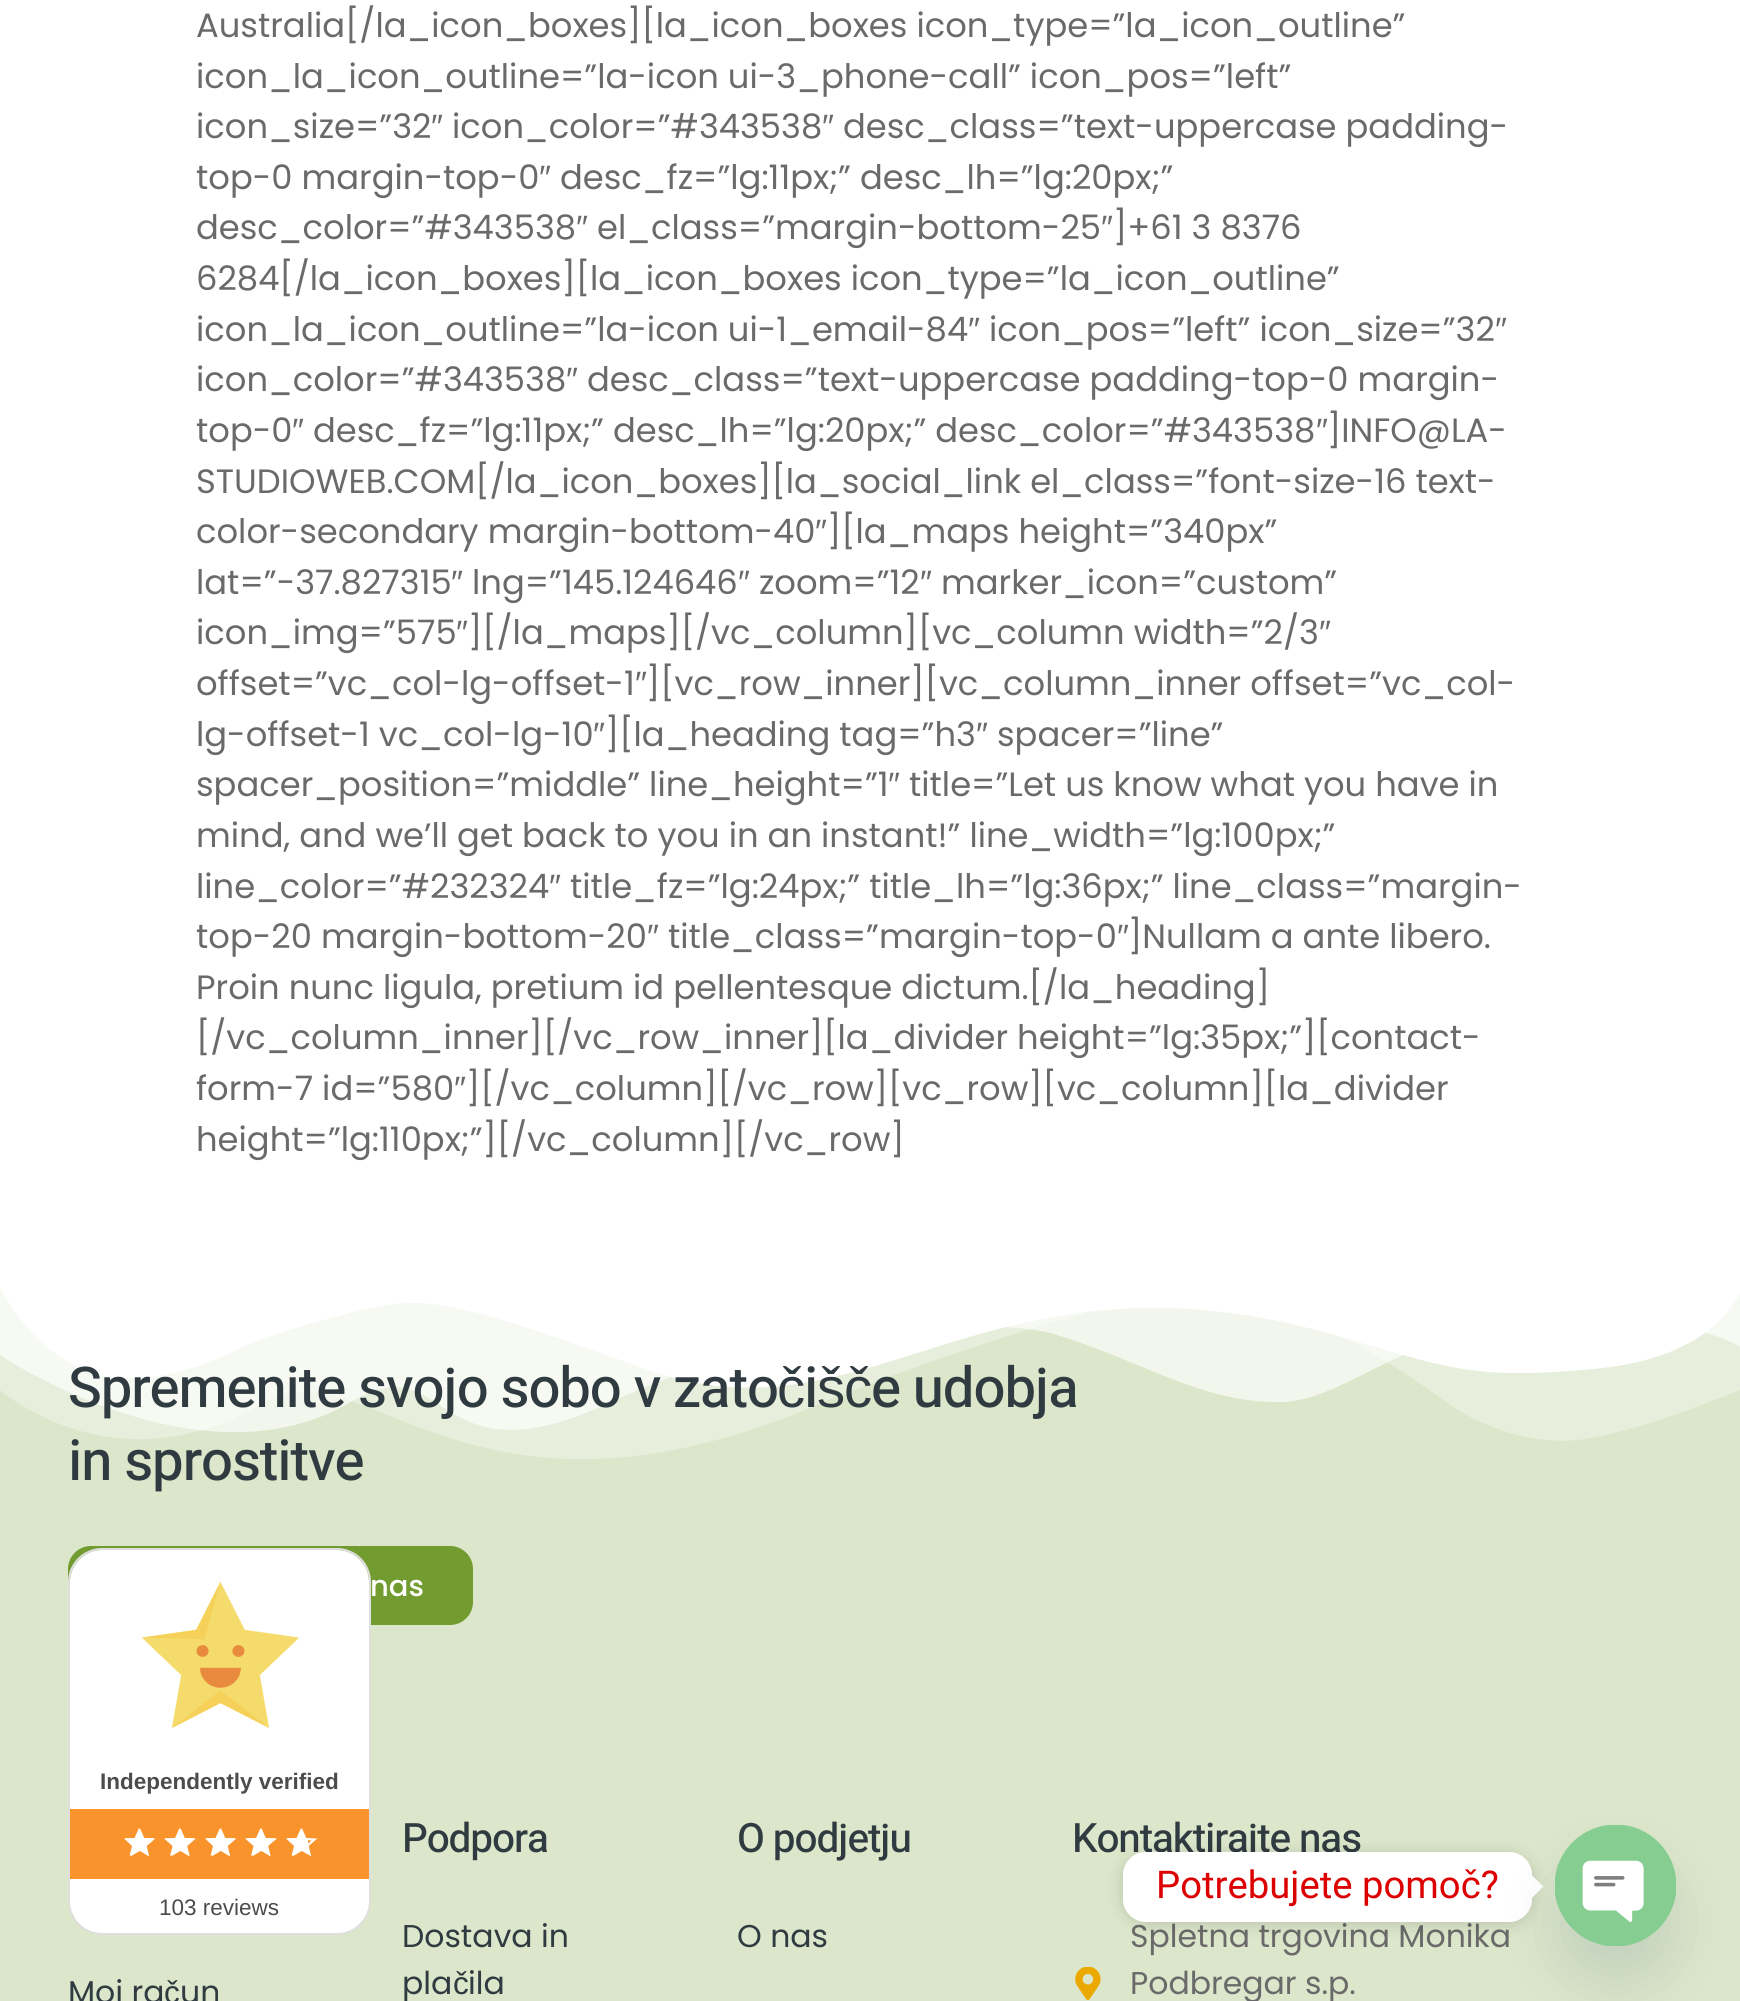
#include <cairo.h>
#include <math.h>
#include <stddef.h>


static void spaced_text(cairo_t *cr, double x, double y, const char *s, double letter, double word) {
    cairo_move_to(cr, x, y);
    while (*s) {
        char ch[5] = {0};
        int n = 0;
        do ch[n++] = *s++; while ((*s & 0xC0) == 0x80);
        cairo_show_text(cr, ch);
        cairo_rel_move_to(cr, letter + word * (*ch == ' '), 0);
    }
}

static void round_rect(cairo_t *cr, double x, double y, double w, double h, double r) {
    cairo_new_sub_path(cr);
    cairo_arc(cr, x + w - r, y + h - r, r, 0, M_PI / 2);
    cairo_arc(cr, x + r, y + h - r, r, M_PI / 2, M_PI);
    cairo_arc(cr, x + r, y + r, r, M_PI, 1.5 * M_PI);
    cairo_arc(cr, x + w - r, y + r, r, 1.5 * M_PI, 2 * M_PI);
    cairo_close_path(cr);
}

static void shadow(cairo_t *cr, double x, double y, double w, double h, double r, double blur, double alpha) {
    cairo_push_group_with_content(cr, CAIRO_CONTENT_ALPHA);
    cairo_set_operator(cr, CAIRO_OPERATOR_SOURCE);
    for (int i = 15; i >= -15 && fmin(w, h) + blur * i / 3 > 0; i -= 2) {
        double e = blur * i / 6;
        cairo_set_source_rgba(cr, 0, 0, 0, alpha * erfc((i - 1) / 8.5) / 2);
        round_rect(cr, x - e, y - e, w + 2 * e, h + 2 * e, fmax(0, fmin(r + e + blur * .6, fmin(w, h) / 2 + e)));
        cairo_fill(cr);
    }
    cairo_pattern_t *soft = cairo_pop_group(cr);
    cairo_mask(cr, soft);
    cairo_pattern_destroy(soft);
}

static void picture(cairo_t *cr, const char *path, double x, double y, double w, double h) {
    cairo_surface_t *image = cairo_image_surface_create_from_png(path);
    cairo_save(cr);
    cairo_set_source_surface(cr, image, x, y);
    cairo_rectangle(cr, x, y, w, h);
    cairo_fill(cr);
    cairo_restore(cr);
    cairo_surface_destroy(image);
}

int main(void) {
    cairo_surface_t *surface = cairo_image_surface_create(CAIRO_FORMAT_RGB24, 1740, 2001);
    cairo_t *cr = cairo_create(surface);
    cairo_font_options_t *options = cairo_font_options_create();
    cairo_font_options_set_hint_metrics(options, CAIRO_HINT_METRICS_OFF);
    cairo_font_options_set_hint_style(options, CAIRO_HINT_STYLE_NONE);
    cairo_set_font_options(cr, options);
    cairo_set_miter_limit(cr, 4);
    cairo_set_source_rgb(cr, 1, 1, 1);
    cairo_paint(cr);
    cairo_select_font_face(cr, "Poppins", CAIRO_FONT_SLANT_NORMAL, CAIRO_FONT_WEIGHT_NORMAL);
    cairo_set_font_size(cr, 33.75);
    cairo_set_source_rgb(cr, 0.416, 0.416, 0.416);
    cairo_move_to(cr, 196, 37);
    cairo_show_text(cr, "Australia[/la_icon_boxes][la_icon_boxes icon_type=”la_icon_outline”");
    cairo_move_to(cr, 196, 88);
    cairo_show_text(cr, "icon_la_icon_outline=”la-icon ui-3_phone-call” icon_pos=”left”");
    cairo_move_to(cr, 196, 138);
    cairo_show_text(cr, "icon_size=”32");
    cairo_select_font_face(cr, "Liberation Sans", CAIRO_FONT_SLANT_NORMAL, CAIRO_FONT_WEIGHT_NORMAL);
    cairo_move_to(cr, 431, 138);
    cairo_show_text(cr, "″");
    cairo_select_font_face(cr, "Poppins", CAIRO_FONT_SLANT_NORMAL, CAIRO_FONT_WEIGHT_NORMAL);
    cairo_move_to(cr, 452, 138);
    cairo_show_text(cr, "icon_color=”#343538");
    cairo_select_font_face(cr, "Liberation Sans", CAIRO_FONT_SLANT_NORMAL, CAIRO_FONT_WEIGHT_NORMAL);
    cairo_move_to(cr, 822, 138);
    cairo_show_text(cr, "″");
    cairo_select_font_face(cr, "Poppins", CAIRO_FONT_SLANT_NORMAL, CAIRO_FONT_WEIGHT_NORMAL);
    cairo_move_to(cr, 843, 138);
    cairo_show_text(cr, "desc_class=”text-uppercase padding-");
    cairo_move_to(cr, 196, 189);
    cairo_show_text(cr, "top-0 margin-top-0");
    cairo_select_font_face(cr, "Liberation Sans", CAIRO_FONT_SLANT_NORMAL, CAIRO_FONT_WEIGHT_NORMAL);
    cairo_move_to(cr, 539, 189);
    cairo_show_text(cr, "″");
    cairo_select_font_face(cr, "Poppins", CAIRO_FONT_SLANT_NORMAL, CAIRO_FONT_WEIGHT_NORMAL);
    cairo_move_to(cr, 560, 189);
    cairo_show_text(cr, "desc_fz=”lg:11px;” desc_lh=”lg:20px;”");
    cairo_move_to(cr, 196, 239);
    cairo_show_text(cr, "desc_color=”#343538");
    cairo_select_font_face(cr, "Liberation Sans", CAIRO_FONT_SLANT_NORMAL, CAIRO_FONT_WEIGHT_NORMAL);
    cairo_move_to(cr, 576, 239);
    cairo_show_text(cr, "″");
    cairo_select_font_face(cr, "Poppins", CAIRO_FONT_SLANT_NORMAL, CAIRO_FONT_WEIGHT_NORMAL);
    cairo_move_to(cr, 597, 239);
    cairo_show_text(cr, "el_class=”margin-bottom-25");
    cairo_select_font_face(cr, "Liberation Sans", CAIRO_FONT_SLANT_NORMAL, CAIRO_FONT_WEIGHT_NORMAL);
    cairo_move_to(cr, 1101, 239);
    cairo_show_text(cr, "″");
    cairo_select_font_face(cr, "Poppins", CAIRO_FONT_SLANT_NORMAL, CAIRO_FONT_WEIGHT_NORMAL);
    cairo_move_to(cr, 1113, 239);
    cairo_show_text(cr, "]+61 3 8376");
    cairo_move_to(cr, 196, 290);
    cairo_show_text(cr, "6284[/la_icon_boxes][la_icon_boxes icon_type=”la_icon_outline”");
    cairo_move_to(cr, 196, 341);
    cairo_show_text(cr, "icon_la_icon_outline=”la-icon ui-1_email-84");
    cairo_select_font_face(cr, "Liberation Sans", CAIRO_FONT_SLANT_NORMAL, CAIRO_FONT_WEIGHT_NORMAL);
    cairo_move_to(cr, 968, 341);
    cairo_show_text(cr, "″");
    cairo_select_font_face(cr, "Poppins", CAIRO_FONT_SLANT_NORMAL, CAIRO_FONT_WEIGHT_NORMAL);
    cairo_move_to(cr, 989, 341);
    cairo_show_text(cr, "icon_pos=”left” icon_size=”32");
    cairo_select_font_face(cr, "Liberation Sans", CAIRO_FONT_SLANT_NORMAL, CAIRO_FONT_WEIGHT_NORMAL);
    cairo_move_to(cr, 1495, 341);
    cairo_show_text(cr, "″");
    cairo_select_font_face(cr, "Poppins", CAIRO_FONT_SLANT_NORMAL, CAIRO_FONT_WEIGHT_NORMAL);
    cairo_move_to(cr, 196, 391);
    cairo_show_text(cr, "icon_color=”#343538");
    cairo_select_font_face(cr, "Liberation Sans", CAIRO_FONT_SLANT_NORMAL, CAIRO_FONT_WEIGHT_NORMAL);
    cairo_move_to(cr, 566, 391);
    cairo_show_text(cr, "″");
    cairo_select_font_face(cr, "Poppins", CAIRO_FONT_SLANT_NORMAL, CAIRO_FONT_WEIGHT_NORMAL);
    cairo_move_to(cr, 587, 391);
    cairo_show_text(cr, "desc_class=”text-uppercase padding-top-0 margin-");
    cairo_move_to(cr, 196, 442);
    cairo_show_text(cr, "top-0");
    cairo_select_font_face(cr, "Liberation Sans", CAIRO_FONT_SLANT_NORMAL, CAIRO_FONT_WEIGHT_NORMAL);
    cairo_move_to(cr, 292, 442);
    cairo_show_text(cr, "″");
    cairo_select_font_face(cr, "Poppins", CAIRO_FONT_SLANT_NORMAL, CAIRO_FONT_WEIGHT_NORMAL);
    cairo_move_to(cr, 313, 442);
    cairo_show_text(cr, "desc_fz=”lg:11px;” desc_lh=”lg:20px;” desc_color=”#343538");
    cairo_select_font_face(cr, "Liberation Sans", CAIRO_FONT_SLANT_NORMAL, CAIRO_FONT_WEIGHT_NORMAL);
    cairo_move_to(cr, 1316, 442);
    cairo_show_text(cr, "″");
    cairo_select_font_face(cr, "Poppins", CAIRO_FONT_SLANT_NORMAL, CAIRO_FONT_WEIGHT_NORMAL);
    cairo_move_to(cr, 1327, 442);
    cairo_show_text(cr, "]INFO@LA-");
    cairo_move_to(cr, 196, 493);
    cairo_show_text(cr, "STUDIOWEB.COM[/la_icon_boxes][la_social_link el_class=”font-size-16 text-");
    cairo_move_to(cr, 196, 543);
    cairo_show_text(cr, "color-secondary margin-bottom-40");
    cairo_select_font_face(cr, "Liberation Sans", CAIRO_FONT_SLANT_NORMAL, CAIRO_FONT_WEIGHT_NORMAL);
    cairo_move_to(cr, 815, 543);
    cairo_show_text(cr, "″");
    cairo_select_font_face(cr, "Poppins", CAIRO_FONT_SLANT_NORMAL, CAIRO_FONT_WEIGHT_NORMAL);
    cairo_move_to(cr, 827, 543);
    cairo_show_text(cr, "][la_maps height=”340px”");
    cairo_move_to(cr, 196, 594);
    cairo_show_text(cr, "lat=”-37.827315");
    cairo_select_font_face(cr, "Liberation Sans", CAIRO_FONT_SLANT_NORMAL, CAIRO_FONT_WEIGHT_NORMAL);
    cairo_move_to(cr, 451, 594);
    cairo_show_text(cr, "″");
    cairo_select_font_face(cr, "Poppins", CAIRO_FONT_SLANT_NORMAL, CAIRO_FONT_WEIGHT_NORMAL);
    cairo_move_to(cr, 472, 594);
    cairo_show_text(cr, "lng=”145.124646");
    cairo_select_font_face(cr, "Liberation Sans", CAIRO_FONT_SLANT_NORMAL, CAIRO_FONT_WEIGHT_NORMAL);
    cairo_move_to(cr, 738, 594);
    cairo_show_text(cr, "″");
    cairo_select_font_face(cr, "Poppins", CAIRO_FONT_SLANT_NORMAL, CAIRO_FONT_WEIGHT_NORMAL);
    cairo_move_to(cr, 759, 594);
    cairo_show_text(cr, "zoom=”12");
    cairo_select_font_face(cr, "Liberation Sans", CAIRO_FONT_SLANT_NORMAL, CAIRO_FONT_WEIGHT_NORMAL);
    cairo_move_to(cr, 920, 594);
    cairo_show_text(cr, "″");
    cairo_select_font_face(cr, "Poppins", CAIRO_FONT_SLANT_NORMAL, CAIRO_FONT_WEIGHT_NORMAL);
    cairo_move_to(cr, 941, 594);
    cairo_show_text(cr, "marker_icon=”custom”");
    cairo_move_to(cr, 196, 644);
    cairo_show_text(cr, "icon_img=”575");
    cairo_select_font_face(cr, "Liberation Sans", CAIRO_FONT_SLANT_NORMAL, CAIRO_FONT_WEIGHT_NORMAL);
    cairo_move_to(cr, 456, 644);
    cairo_show_text(cr, "″");
    cairo_select_font_face(cr, "Poppins", CAIRO_FONT_SLANT_NORMAL, CAIRO_FONT_WEIGHT_NORMAL);
    cairo_move_to(cr, 468, 644);
    cairo_show_text(cr, "][/la_maps][/vc_column][vc_column width=”2/3");
    cairo_select_font_face(cr, "Liberation Sans", CAIRO_FONT_SLANT_NORMAL, CAIRO_FONT_WEIGHT_NORMAL);
    cairo_move_to(cr, 1319, 644);
    cairo_show_text(cr, "″");
    cairo_select_font_face(cr, "Poppins", CAIRO_FONT_SLANT_NORMAL, CAIRO_FONT_WEIGHT_NORMAL);
    cairo_move_to(cr, 196, 695);
    cairo_show_text(cr, "offset=”vc_col-lg-offset-1");
    cairo_select_font_face(cr, "Liberation Sans", CAIRO_FONT_SLANT_NORMAL, CAIRO_FONT_WEIGHT_NORMAL);
    cairo_move_to(cr, 635, 695);
    cairo_show_text(cr, "″");
    cairo_select_font_face(cr, "Poppins", CAIRO_FONT_SLANT_NORMAL, CAIRO_FONT_WEIGHT_NORMAL);
    cairo_move_to(cr, 646, 695);
    cairo_show_text(cr, "][vc_row_inner][vc_column_inner offset=”vc_col-");
    cairo_move_to(cr, 196, 746);
    cairo_show_text(cr, "lg-offset-1 vc_col-lg-10");
    cairo_select_font_face(cr, "Liberation Sans", CAIRO_FONT_SLANT_NORMAL, CAIRO_FONT_WEIGHT_NORMAL);
    cairo_move_to(cr, 593, 746);
    cairo_show_text(cr, "″");
    cairo_select_font_face(cr, "Poppins", CAIRO_FONT_SLANT_NORMAL, CAIRO_FONT_WEIGHT_NORMAL);
    cairo_move_to(cr, 605, 746);
    cairo_show_text(cr, "][la_heading tag=”h3");
    cairo_select_font_face(cr, "Liberation Sans", CAIRO_FONT_SLANT_NORMAL, CAIRO_FONT_WEIGHT_NORMAL);
    cairo_move_to(cr, 976, 746);
    cairo_show_text(cr, "″");
    cairo_select_font_face(cr, "Poppins", CAIRO_FONT_SLANT_NORMAL, CAIRO_FONT_WEIGHT_NORMAL);
    cairo_move_to(cr, 997, 746);
    cairo_show_text(cr, "spacer=”line”");
    cairo_move_to(cr, 196, 796);
    cairo_show_text(cr, "spacer_position=”middle” line_height=”1");
    cairo_select_font_face(cr, "Liberation Sans", CAIRO_FONT_SLANT_NORMAL, CAIRO_FONT_WEIGHT_NORMAL);
    cairo_move_to(cr, 888, 796);
    cairo_show_text(cr, "″");
    cairo_select_font_face(cr, "Poppins", CAIRO_FONT_SLANT_NORMAL, CAIRO_FONT_WEIGHT_NORMAL);
    cairo_move_to(cr, 909, 796);
    cairo_show_text(cr, "title=”Let us know what you have in");
    cairo_move_to(cr, 196, 847);
    cairo_show_text(cr, "mind, and we’ll get back to you in an instant!” line_width=”lg:100px;”");
    cairo_move_to(cr, 196, 898);
    cairo_show_text(cr, "line_color=”#232324");
    cairo_select_font_face(cr, "Liberation Sans", CAIRO_FONT_SLANT_NORMAL, CAIRO_FONT_WEIGHT_NORMAL);
    cairo_move_to(cr, 549, 898);
    cairo_show_text(cr, "″");
    cairo_select_font_face(cr, "Poppins", CAIRO_FONT_SLANT_NORMAL, CAIRO_FONT_WEIGHT_NORMAL);
    cairo_move_to(cr, 570, 898);
    cairo_show_text(cr, "title_fz=”lg:24px;” title_lh=”lg:36px;” line_class=”margin-");
    cairo_move_to(cr, 196, 948);
    cairo_show_text(cr, "top-20 margin-bottom-20");
    cairo_select_font_face(cr, "Liberation Sans", CAIRO_FONT_SLANT_NORMAL, CAIRO_FONT_WEIGHT_NORMAL);
    cairo_move_to(cr, 647, 948);
    cairo_show_text(cr, "″");
    cairo_select_font_face(cr, "Poppins", CAIRO_FONT_SLANT_NORMAL, CAIRO_FONT_WEIGHT_NORMAL);
    cairo_move_to(cr, 668, 948);
    cairo_show_text(cr, "title_class=”margin-top-0");
    cairo_select_font_face(cr, "Liberation Sans", CAIRO_FONT_SLANT_NORMAL, CAIRO_FONT_WEIGHT_NORMAL);
    cairo_move_to(cr, 1117, 948);
    cairo_show_text(cr, "″");
    cairo_select_font_face(cr, "Poppins", CAIRO_FONT_SLANT_NORMAL, CAIRO_FONT_WEIGHT_NORMAL);
    cairo_move_to(cr, 1128, 948);
    cairo_show_text(cr, "]Nullam a ante libero.");
    cairo_move_to(cr, 196, 999);
    cairo_show_text(cr, "Proin nunc ligula, pretium id pellentesque dictum.[/la_heading]");
    cairo_move_to(cr, 196, 1049);
    cairo_show_text(cr, "[/vc_column_inner][/vc_row_inner][la_divider height=”lg:35px;”][contact-");
    cairo_move_to(cr, 196, 1100);
    cairo_show_text(cr, "form-7 id=”580");
    cairo_select_font_face(cr, "Liberation Sans", CAIRO_FONT_SLANT_NORMAL, CAIRO_FONT_WEIGHT_NORMAL);
    cairo_move_to(cr, 454, 1100);
    cairo_show_text(cr, "″");
    cairo_select_font_face(cr, "Poppins", CAIRO_FONT_SLANT_NORMAL, CAIRO_FONT_WEIGHT_NORMAL);
    cairo_move_to(cr, 466, 1100);
    cairo_show_text(cr, "][/vc_column][/vc_row][vc_row][vc_column][la_divider");
    cairo_move_to(cr, 196, 1151);
    cairo_show_text(cr, "height=”lg:110px;”][/vc_column][/vc_row]");
    cairo_set_source_rgb(cr, 0.859, 0.902, 0.792);
    cairo_rectangle(cr, 0, 1288, 1740, 713);
    cairo_fill(cr);
    picture(cr, "img1.png", 0, 1287, 1740, 172);
    cairo_select_font_face(cr, "Heebo Medium", CAIRO_FONT_SLANT_NORMAL, CAIRO_FONT_WEIGHT_NORMAL);
    cairo_set_font_size(cr, 56.25);
    cairo_set_source_rgb(cr, 0.188, 0.231, 0.255);
    spaced_text(cr, 68, 1407, "Spremenite svojo sobo v zato", -1.1, 0);
    cairo_select_font_face(cr, "Liberation Sans", CAIRO_FONT_SLANT_NORMAL, CAIRO_FONT_WEIGHT_NORMAL);
    spaced_text(cr, 777, 1407, "č", -1.1, 0);
    cairo_select_font_face(cr, "Heebo Medium", CAIRO_FONT_SLANT_NORMAL, CAIRO_FONT_WEIGHT_NORMAL);
    spaced_text(cr, 804, 1407, "i", -1.1, 0);
    cairo_select_font_face(cr, "Liberation Sans", CAIRO_FONT_SLANT_NORMAL, CAIRO_FONT_WEIGHT_NORMAL);
    spaced_text(cr, 817, 1407, "šč", -1.1, 0);
    cairo_select_font_face(cr, "Heebo Medium", CAIRO_FONT_SLANT_NORMAL, CAIRO_FONT_WEIGHT_NORMAL);
    spaced_text(cr, 871, 1407, "e udobja", -1.1, 0);
    spaced_text(cr, 68, 1480, "in sprostitve", -1.1, 0);
    cairo_set_source_rgb(cr, 0.447, 0.608, 0.188);
    round_rect(cr, 69, 1547, 403, 77, 22);
    cairo_fill_preserve(cr);
    cairo_stroke(cr);
    cairo_select_font_face(cr, "Poppins Medium", CAIRO_FONT_SLANT_NORMAL, CAIRO_FONT_WEIGHT_NORMAL);
    cairo_set_font_size(cr, 29);
    cairo_set_source_rgb(cr, 1, 1, 1);
    cairo_move_to(cr, 370, 1596);
    cairo_show_text(cr, "nas");
    cairo_select_font_face(cr, "Poppins", CAIRO_FONT_SLANT_NORMAL, CAIRO_FONT_WEIGHT_NORMAL);
    cairo_set_font_size(cr, 31.5);
    cairo_set_source_rgb(cr, 0.188, 0.231, 0.255);
    cairo_move_to(cr, 68, 2003);
    cairo_show_text(cr, "Moj ra");
    cairo_select_font_face(cr, "Liberation Sans", CAIRO_FONT_SLANT_NORMAL, CAIRO_FONT_WEIGHT_NORMAL);
    cairo_move_to(cr, 164, 2003);
    cairo_show_text(cr, "č");
    cairo_select_font_face(cr, "Poppins", CAIRO_FONT_SLANT_NORMAL, CAIRO_FONT_WEIGHT_NORMAL);
    cairo_move_to(cr, 180, 2003);
    cairo_show_text(cr, "un");
    cairo_select_font_face(cr, "Heebo Medium", CAIRO_FONT_SLANT_NORMAL, CAIRO_FONT_WEIGHT_NORMAL);
    cairo_set_font_size(cr, 40.5);
    spaced_text(cr, 402, 1852, "Podpora", -1.1, 0);
    cairo_select_font_face(cr, "Poppins", CAIRO_FONT_SLANT_NORMAL, CAIRO_FONT_WEIGHT_NORMAL);
    cairo_set_font_size(cr, 31.5);
    cairo_move_to(cr, 402, 1947);
    cairo_show_text(cr, "Dostava in");
    cairo_move_to(cr, 402, 1994);
    cairo_show_text(cr, "pla");
    cairo_select_font_face(cr, "Liberation Sans", CAIRO_FONT_SLANT_NORMAL, CAIRO_FONT_WEIGHT_NORMAL);
    cairo_move_to(cr, 453, 1994);
    cairo_show_text(cr, "č");
    cairo_select_font_face(cr, "Poppins", CAIRO_FONT_SLANT_NORMAL, CAIRO_FONT_WEIGHT_NORMAL);
    cairo_move_to(cr, 468, 1994);
    cairo_show_text(cr, "ila");
    cairo_select_font_face(cr, "Heebo Medium", CAIRO_FONT_SLANT_NORMAL, CAIRO_FONT_WEIGHT_NORMAL);
    cairo_set_font_size(cr, 40.5);
    spaced_text(cr, 737, 1852, "O podjetju", -1.1, 0);
    cairo_select_font_face(cr, "Poppins", CAIRO_FONT_SLANT_NORMAL, CAIRO_FONT_WEIGHT_NORMAL);
    cairo_set_font_size(cr, 31.5);
    cairo_move_to(cr, 737, 1947);
    cairo_show_text(cr, "O nas");
    cairo_select_font_face(cr, "Heebo Medium", CAIRO_FONT_SLANT_NORMAL, CAIRO_FONT_WEIGHT_NORMAL);
    cairo_set_font_size(cr, 40.5);
    spaced_text(cr, 1072, 1852, "Kontaktirajte nas", -1.1, 0);
    picture(cr, "img2.png", 1075, 1967, 26, 33);
    cairo_select_font_face(cr, "Poppins", CAIRO_FONT_SLANT_NORMAL, CAIRO_FONT_WEIGHT_NORMAL);
    cairo_set_font_size(cr, 31.5);
    cairo_set_source_rgb(cr, 0.416, 0.416, 0.416);
    cairo_move_to(cr, 1130, 1947);
    cairo_show_text(cr, "Spletna trgovina Monika");
    cairo_move_to(cr, 1130, 1994);
    cairo_show_text(cr, "Podbregar s.p.");
    round_rect(cr, 69, 1549, 301, 385, 33);
    cairo_set_source_rgb(cr, 0.875, 0.875, 0.875);
    cairo_stroke(cr);
    cairo_set_source_rgb(cr, 1, 1, 1);
    cairo_new_path(cr);
    cairo_move_to(cr, 102, 1550);
    cairo_line_to(cr, 337, 1550);
    cairo_curve_to(cr, 354.5, 1550, 369, 1564.5, 369, 1582);
    cairo_line_to(cr, 369, 1809);
    cairo_line_to(cr, 70, 1809);
    cairo_line_to(cr, 70, 1582);
    cairo_curve_to(cr, 70, 1564.5, 84.5, 1550, 102, 1550);
    cairo_close_path(cr);
    cairo_fill(cr);
    cairo_set_source_rgb(cr, 0.973, 0.58, 0.176);
    cairo_rectangle(cr, 70, 1809, 299, 70);
    cairo_fill(cr);
    cairo_set_source_rgb(cr, 1, 1, 1);
    cairo_new_path(cr);
    cairo_move_to(cr, 70, 1879);
    cairo_line_to(cr, 369, 1879);
    cairo_line_to(cr, 369, 1901);
    cairo_curve_to(cr, 369, 1918.5, 354.5, 1933, 337, 1933);
    cairo_line_to(cr, 102, 1933);
    cairo_curve_to(cr, 84.5, 1933, 70, 1918.5, 70, 1901);
    cairo_close_path(cr);
    cairo_fill(cr);
    picture(cr, "img3.png", 142, 1582, 157, 146);
    cairo_select_font_face(cr, "Liberation Sans", CAIRO_FONT_SLANT_NORMAL, CAIRO_FONT_WEIGHT_BOLD);
    cairo_set_font_size(cr, 22.5);
    cairo_set_source_rgb(cr, 0.298, 0.298, 0.298);
    cairo_move_to(cr, 100, 1789);
    cairo_show_text(cr, "Independently verified");
    cairo_new_path(cr);
    cairo_move_to(cr, 140.5, 1849.5);
    cairo_line_to(cr, 140, 1849.5);
    cairo_line_to(cr, 132.5, 1854);
    cairo_line_to(cr, 134.5, 1845.5);
    cairo_line_to(cr, 127.5, 1839.5);
    cairo_line_to(cr, 136.5, 1839);
    cairo_line_to(cr, 140, 1831);
    cairo_line_to(cr, 143.5, 1839);
    cairo_line_to(cr, 152.5, 1839.5);
    cairo_line_to(cr, 145.5, 1845.5);
    cairo_line_to(cr, 147.5, 1854);
    cairo_close_path(cr);
    cairo_set_source_rgb(cr, 1, 1, 1);
    cairo_set_line_width(cr, 2.2);
    cairo_stroke(cr);
    cairo_new_path(cr);
    cairo_move_to(cr, 139, 1850.5);
    cairo_line_to(cr, 148.5, 1856);
    cairo_line_to(cr, 146, 1846);
    cairo_line_to(cr, 154.5, 1838.5);
    cairo_line_to(cr, 143.5, 1838);
    cairo_line_to(cr, 139, 1828);
    cairo_line_to(cr, 134.5, 1838);
    cairo_line_to(cr, 124, 1838.5);
    cairo_line_to(cr, 132, 1846);
    cairo_line_to(cr, 129.5, 1856);
    cairo_close_path(cr);
    cairo_fill(cr);
    cairo_new_path(cr);
    cairo_move_to(cr, 181, 1849.5);
    cairo_line_to(cr, 180.5, 1849.5);
    cairo_line_to(cr, 173, 1854);
    cairo_line_to(cr, 175, 1845.5);
    cairo_line_to(cr, 168, 1839.5);
    cairo_line_to(cr, 177, 1839);
    cairo_line_to(cr, 180.5, 1831);
    cairo_line_to(cr, 184, 1839);
    cairo_line_to(cr, 193, 1839.5);
    cairo_line_to(cr, 186, 1845.5);
    cairo_line_to(cr, 188, 1854);
    cairo_close_path(cr);
    cairo_stroke(cr);
    cairo_new_path(cr);
    cairo_move_to(cr, 179.5, 1850.5);
    cairo_line_to(cr, 189, 1856);
    cairo_line_to(cr, 186.5, 1846);
    cairo_line_to(cr, 195, 1838.5);
    cairo_line_to(cr, 184, 1838);
    cairo_line_to(cr, 179.5, 1828);
    cairo_line_to(cr, 175, 1838);
    cairo_line_to(cr, 164, 1838.5);
    cairo_line_to(cr, 172.5, 1846);
    cairo_line_to(cr, 170, 1856);
    cairo_close_path(cr);
    cairo_fill(cr);
    cairo_new_path(cr);
    cairo_move_to(cr, 221.5, 1849.5);
    cairo_line_to(cr, 221, 1849.5);
    cairo_line_to(cr, 213.5, 1854);
    cairo_line_to(cr, 215.5, 1845.5);
    cairo_line_to(cr, 208.5, 1839.5);
    cairo_line_to(cr, 217.5, 1839);
    cairo_line_to(cr, 221, 1831);
    cairo_line_to(cr, 224.5, 1839);
    cairo_line_to(cr, 233.5, 1839.5);
    cairo_line_to(cr, 226.5, 1845.5);
    cairo_line_to(cr, 228.5, 1854);
    cairo_close_path(cr);
    cairo_stroke(cr);
    cairo_new_path(cr);
    cairo_move_to(cr, 220, 1850.5);
    cairo_line_to(cr, 229.5, 1856);
    cairo_line_to(cr, 227, 1846);
    cairo_line_to(cr, 235.5, 1838.5);
    cairo_line_to(cr, 224.5, 1838);
    cairo_line_to(cr, 220, 1828);
    cairo_line_to(cr, 215.5, 1838);
    cairo_line_to(cr, 205, 1838.5);
    cairo_line_to(cr, 213, 1846);
    cairo_line_to(cr, 210.5, 1856);
    cairo_close_path(cr);
    cairo_fill(cr);
    cairo_new_path(cr);
    cairo_move_to(cr, 262, 1849.5);
    cairo_line_to(cr, 261.5, 1849.5);
    cairo_line_to(cr, 254, 1854);
    cairo_line_to(cr, 256, 1845.5);
    cairo_line_to(cr, 249, 1839.5);
    cairo_line_to(cr, 258, 1839);
    cairo_line_to(cr, 261.5, 1831);
    cairo_line_to(cr, 265, 1839);
    cairo_line_to(cr, 274, 1839.5);
    cairo_line_to(cr, 267, 1845.5);
    cairo_line_to(cr, 269, 1854);
    cairo_close_path(cr);
    cairo_stroke(cr);
    cairo_new_path(cr);
    cairo_move_to(cr, 260.5, 1850.5);
    cairo_line_to(cr, 270, 1856);
    cairo_line_to(cr, 267.5, 1846);
    cairo_line_to(cr, 276, 1838.5);
    cairo_line_to(cr, 265, 1838);
    cairo_line_to(cr, 260.5, 1828);
    cairo_line_to(cr, 256, 1838);
    cairo_line_to(cr, 245, 1838.5);
    cairo_line_to(cr, 253.5, 1846);
    cairo_line_to(cr, 251, 1856);
    cairo_close_path(cr);
    cairo_fill(cr);
    cairo_new_path(cr);
    cairo_move_to(cr, 302.5, 1849.5);
    cairo_line_to(cr, 302, 1849.5);
    cairo_line_to(cr, 294.5, 1854);
    cairo_line_to(cr, 296.5, 1845.5);
    cairo_line_to(cr, 289.5, 1839.5);
    cairo_line_to(cr, 298.5, 1839);
    cairo_line_to(cr, 302, 1831);
    cairo_line_to(cr, 305.5, 1839);
    cairo_line_to(cr, 314.5, 1839.5);
    cairo_line_to(cr, 307.5, 1845.5);
    cairo_line_to(cr, 309.5, 1854);
    cairo_close_path(cr);
    cairo_stroke(cr);
    cairo_save(cr);
    cairo_rectangle(cr, 286, 1827, 22, 29);
    cairo_clip(cr);
    cairo_new_path(cr);
    cairo_move_to(cr, 301, 1850.5);
    cairo_line_to(cr, 310.5, 1856);
    cairo_line_to(cr, 308, 1846);
    cairo_line_to(cr, 316.5, 1838.5);
    cairo_line_to(cr, 305.5, 1838);
    cairo_line_to(cr, 301, 1828);
    cairo_line_to(cr, 296.5, 1838);
    cairo_line_to(cr, 286, 1838.5);
    cairo_line_to(cr, 294, 1846);
    cairo_line_to(cr, 291.5, 1856);
    cairo_close_path(cr);
    cairo_fill(cr);
    cairo_restore(cr);
    cairo_select_font_face(cr, "Liberation Sans", CAIRO_FONT_SLANT_NORMAL, CAIRO_FONT_WEIGHT_NORMAL);
    cairo_set_source_rgb(cr, 0.298, 0.298, 0.298);
    cairo_move_to(cr, 159, 1915);
    cairo_show_text(cr, "103 reviews");
    cairo_save(cr);
    cairo_set_fill_rule(cr, CAIRO_FILL_RULE_EVEN_ODD);
    cairo_new_path(cr);
    cairo_move_to(cr, 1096, 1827);
    cairo_line_to(cr, 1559, 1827);
    cairo_line_to(cr, 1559, 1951);
    cairo_line_to(cr, 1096, 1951);
    cairo_close_path(cr);
    cairo_move_to(cr, 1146, 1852);
    cairo_line_to(cr, 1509, 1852);
    cairo_curve_to(cr, 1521.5, 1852, 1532, 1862.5, 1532, 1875);
    cairo_line_to(cr, 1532, 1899);
    cairo_curve_to(cr, 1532, 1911.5, 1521.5, 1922, 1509, 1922);
    cairo_line_to(cr, 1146, 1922);
    cairo_curve_to(cr, 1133.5, 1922, 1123, 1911.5, 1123, 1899);
    cairo_line_to(cr, 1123, 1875);
    cairo_curve_to(cr, 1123, 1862.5, 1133.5, 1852, 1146, 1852);
    cairo_close_path(cr);
    cairo_clip(cr);
    cairo_set_source_rgb(cr, 0, 0, 0);
    shadow(cr, 1123, 1854, 409, 70, 23, 8.5, 0.15);
    cairo_restore(cr);
    cairo_set_source_rgb(cr, 1, 1, 1);
    round_rect(cr, 1123, 1852, 409, 70, 23);
    cairo_fill(cr);
    cairo_select_font_face(cr, "Roboto", CAIRO_FONT_SLANT_NORMAL, CAIRO_FONT_WEIGHT_NORMAL);
    cairo_set_font_size(cr, 38.25);
    cairo_set_source_rgb(cr, 0.867, 0, 0);
    cairo_move_to(cr, 1156, 1898);
    cairo_show_text(cr, "Potrebujete pomoč?");
    cairo_set_source_rgb(cr, 1, 1, 1);
    cairo_new_path(cr);
    cairo_move_to(cr, 1532, 1898);
    cairo_line_to(cr, 1532, 1875.5);
    cairo_line_to(cr, 1543.5, 1886.5);
    cairo_close_path(cr);
    cairo_fill(cr);
    cairo_set_source_rgb(cr, 0.286, 0.408, 0.494);
    shadow(cr, 1555, 1861, 121, 121, 60.5, 27, 0.16);
    picture(cr, "img4.png", 1555, 1825, 121, 121);
    cairo_surface_write_to_png(surface, "page.png");
    cairo_font_options_destroy(options);
    cairo_destroy(cr);
    cairo_surface_destroy(surface);
    return 0;
}
